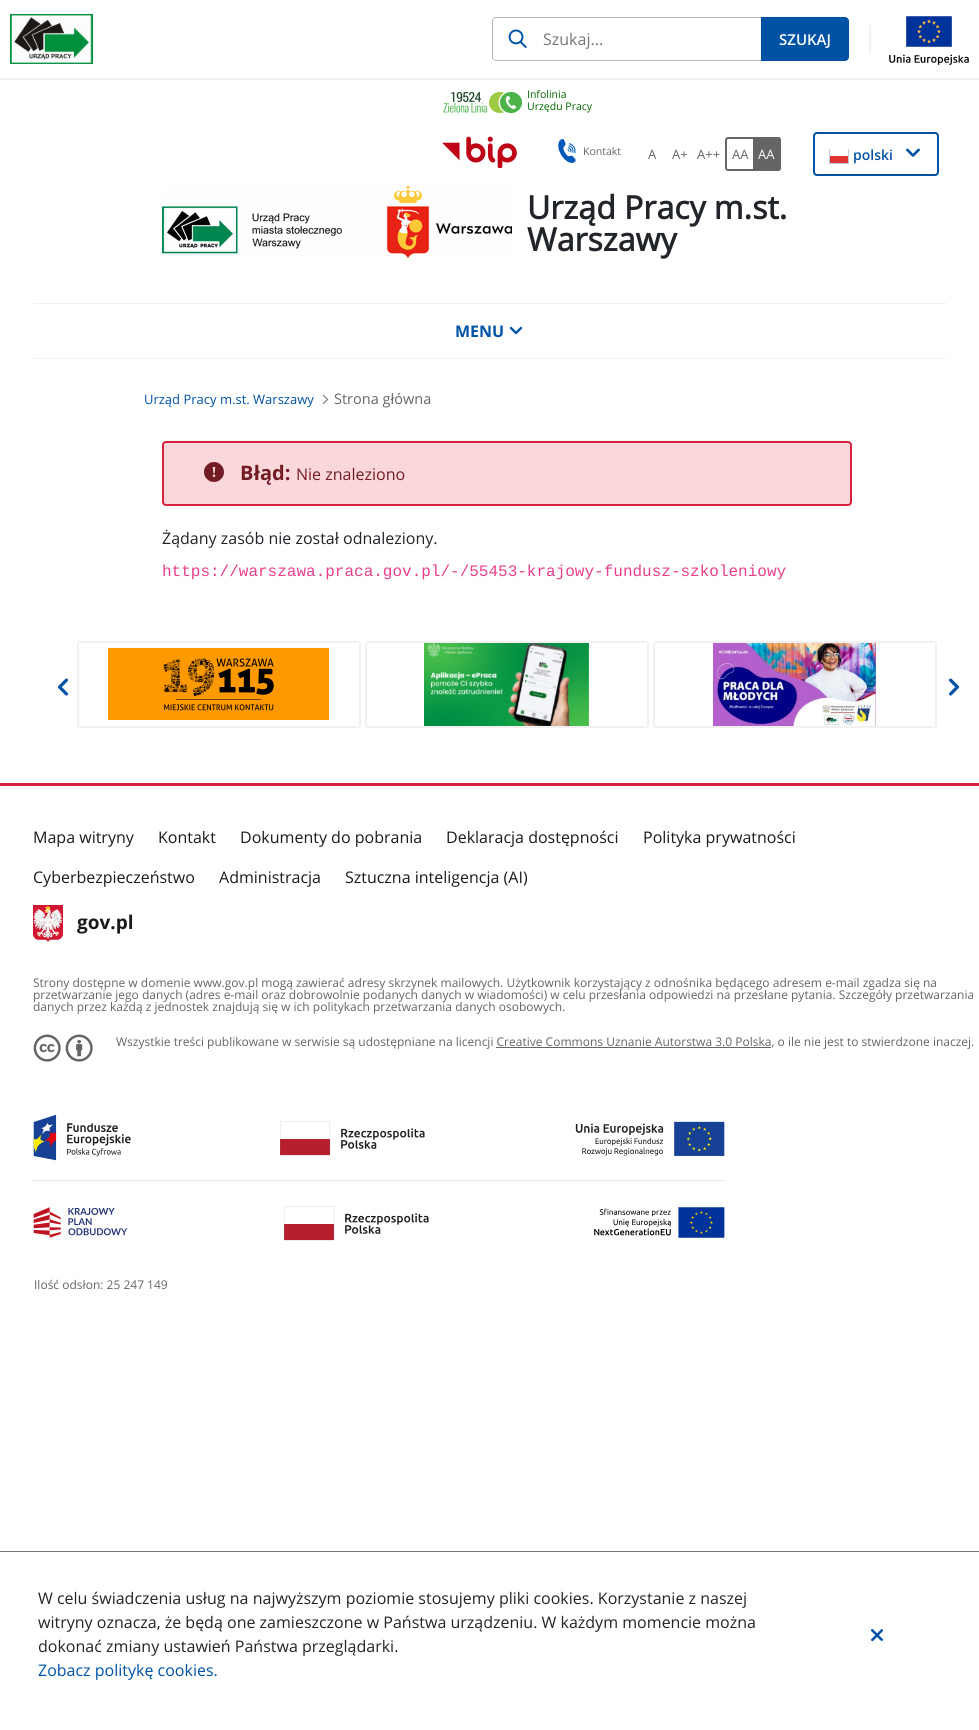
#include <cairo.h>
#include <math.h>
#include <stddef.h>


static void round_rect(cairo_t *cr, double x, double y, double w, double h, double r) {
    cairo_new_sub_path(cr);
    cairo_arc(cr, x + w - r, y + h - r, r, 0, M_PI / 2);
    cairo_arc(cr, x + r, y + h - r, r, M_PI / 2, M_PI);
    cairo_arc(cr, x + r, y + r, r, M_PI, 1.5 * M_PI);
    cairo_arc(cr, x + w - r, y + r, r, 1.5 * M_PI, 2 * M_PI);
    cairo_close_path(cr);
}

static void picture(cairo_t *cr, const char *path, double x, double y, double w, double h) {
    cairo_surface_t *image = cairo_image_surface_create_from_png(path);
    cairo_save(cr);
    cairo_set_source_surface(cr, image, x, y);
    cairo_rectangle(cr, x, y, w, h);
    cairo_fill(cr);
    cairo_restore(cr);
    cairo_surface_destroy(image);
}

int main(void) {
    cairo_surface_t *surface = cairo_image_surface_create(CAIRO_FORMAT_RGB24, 979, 1730);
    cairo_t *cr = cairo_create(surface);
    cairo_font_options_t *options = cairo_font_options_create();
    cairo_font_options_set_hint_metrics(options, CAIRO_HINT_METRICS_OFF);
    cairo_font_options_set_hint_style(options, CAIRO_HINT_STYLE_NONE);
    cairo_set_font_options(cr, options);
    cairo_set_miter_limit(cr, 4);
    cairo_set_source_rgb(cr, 1, 1, 1);
    cairo_paint(cr);
    cairo_set_source_rgb(cr, 0.945, 0.945, 0.945);
    cairo_rectangle(cr, 0, 78, 979, 2);
    cairo_fill(cr);
    picture(cr, "img1.png", 10, 14, 83, 50);
    picture(cr, "img2.png", 508, 29, 19, 20);
    cairo_set_source_rgb(cr, 0.718, 0.718, 0.718);
    cairo_set_fill_rule(cr, CAIRO_FILL_RULE_EVEN_ODD);
    cairo_new_path(cr);
    cairo_move_to(cr, 496, 17);
    cairo_line_to(cr, 761, 17);
    cairo_line_to(cr, 761, 61);
    cairo_line_to(cr, 496, 61);
    cairo_curve_to(cr, 494, 61, 492, 59, 492, 57);
    cairo_line_to(cr, 492, 21);
    cairo_curve_to(cr, 492, 19, 494, 17, 496, 17);
    cairo_close_path(cr);
    cairo_move_to(cr, 496, 18);
    cairo_line_to(cr, 761, 18);
    cairo_line_to(cr, 761, 60);
    cairo_line_to(cr, 496, 60);
    cairo_curve_to(cr, 494, 60, 493, 59, 493, 57);
    cairo_line_to(cr, 493, 21);
    cairo_curve_to(cr, 493, 19, 494, 18, 496, 18);
    cairo_close_path(cr);
    cairo_fill(cr);
    cairo_select_font_face(cr, "Open Sans", CAIRO_FONT_SLANT_NORMAL, CAIRO_FONT_WEIGHT_NORMAL);
    cairo_set_font_size(cr, 16);
    cairo_set_source_rgb(cr, 0.463, 0.463, 0.463);
    cairo_move_to(cr, 543, 45);
    cairo_show_text(cr, "Szukaj...");
    cairo_set_source_rgb(cr, 0, 0.322, 0.647);
    cairo_new_path(cr);
    cairo_move_to(cr, 761, 17);
    cairo_line_to(cr, 845, 17);
    cairo_curve_to(cr, 847, 17, 849, 19, 849, 21);
    cairo_line_to(cr, 849, 57);
    cairo_curve_to(cr, 849, 59, 847, 61, 845, 61);
    cairo_line_to(cr, 761, 61);
    cairo_close_path(cr);
    cairo_fill(cr);
    cairo_select_font_face(cr, "Open Sans SemiBold", CAIRO_FONT_SLANT_NORMAL, CAIRO_FONT_WEIGHT_NORMAL);
    cairo_set_font_size(cr, 15);
    cairo_set_source_rgb(cr, 1, 1, 1);
    cairo_move_to(cr, 779, 45);
    cairo_show_text(cr, "SZUKAJ");
    cairo_set_source_rgb(cr, 0.945, 0.945, 0.945);
    cairo_rectangle(cr, 869, 25, 2, 28);
    cairo_fill(cr);
    picture(cr, "img3.png", 889, 16, 80, 49);
    picture(cr, "img4.png", 443, 92, 79, 22);
    cairo_select_font_face(cr, "Open Sans", CAIRO_FONT_SLANT_NORMAL, CAIRO_FONT_WEIGHT_NORMAL);
    cairo_set_font_size(cr, 10.5);
    cairo_set_source_rgb(cr, 0.004, 0.396, 0.004);
    cairo_move_to(cr, 527, 98);
    cairo_show_text(cr, "Infolinia");
    cairo_move_to(cr, 527, 110);
    cairo_show_text(cr, "Urzędu Pracy");
    picture(cr, "img5.png", 442, 136, 75, 32);
    picture(cr, "img6.png", 558, 139, 18, 24);
    cairo_set_source_rgb(cr, 0.396, 0.396, 0.396);
    cairo_move_to(cr, 583, 155);
    cairo_show_text(cr, "Kontakt");
    cairo_set_font_size(cr, 13);
    cairo_move_to(cr, 648, 159);
    cairo_show_text(cr, "A");
    cairo_move_to(cr, 672, 159);
    cairo_show_text(cr, "A+");
    cairo_move_to(cr, 697, 159);
    cairo_show_text(cr, "A++");
    cairo_new_path(cr);
    cairo_move_to(cr, 728, 137);
    cairo_line_to(cr, 753, 137);
    cairo_line_to(cr, 753, 171);
    cairo_line_to(cr, 728, 171);
    cairo_curve_to(cr, 726.5, 171, 725, 169.5, 725, 168);
    cairo_line_to(cr, 725, 140);
    cairo_curve_to(cr, 725, 138.5, 726.5, 137, 728, 137);
    cairo_close_path(cr);
    cairo_move_to(cr, 728, 139);
    cairo_line_to(cr, 753, 139);
    cairo_line_to(cr, 753, 169);
    cairo_line_to(cr, 728, 169);
    cairo_curve_to(cr, 727.5, 169, 727, 168.5, 727, 168);
    cairo_line_to(cr, 727, 140);
    cairo_curve_to(cr, 727, 139.5, 727.5, 139, 728, 139);
    cairo_close_path(cr);
    cairo_fill(cr);
    cairo_move_to(cr, 732, 159);
    cairo_show_text(cr, "AA");
    cairo_new_path(cr);
    cairo_move_to(cr, 753, 137);
    cairo_line_to(cr, 778, 137);
    cairo_curve_to(cr, 779.5, 137, 781, 138.5, 781, 140);
    cairo_line_to(cr, 781, 168);
    cairo_curve_to(cr, 781, 169.5, 779.5, 171, 778, 171);
    cairo_line_to(cr, 753, 171);
    cairo_close_path(cr);
    cairo_fill(cr);
    cairo_new_path(cr);
    cairo_move_to(cr, 753, 137);
    cairo_line_to(cr, 778, 137);
    cairo_curve_to(cr, 779.5, 137, 781, 138.5, 781, 140);
    cairo_line_to(cr, 781, 168);
    cairo_curve_to(cr, 781, 169.5, 779.5, 171, 778, 171);
    cairo_line_to(cr, 753, 171);
    cairo_close_path(cr);
    cairo_move_to(cr, 753, 139);
    cairo_line_to(cr, 778, 139);
    cairo_curve_to(cr, 778.5, 139, 779, 139.5, 779, 140);
    cairo_line_to(cr, 779, 168);
    cairo_curve_to(cr, 779, 168.5, 778.5, 169, 778, 169);
    cairo_line_to(cr, 753, 169);
    cairo_close_path(cr);
    cairo_fill(cr);
    cairo_set_source_rgb(cr, 1, 1, 1);
    cairo_move_to(cr, 758, 159);
    cairo_show_text(cr, "AA");
    round_rect(cr, 814, 133, 124, 42, 3);
    cairo_set_source_rgb(cr, 0, 0.322, 0.647);
    cairo_stroke(cr);
    cairo_select_font_face(cr, "Open Sans SemiBold", CAIRO_FONT_SLANT_NORMAL, CAIRO_FONT_WEIGHT_NORMAL);
    cairo_set_font_size(cr, 14);
    cairo_move_to(cr, 853, 160);
    cairo_show_text(cr, "polski");
    cairo_set_source_rgb(cr, 0.753, 0.812, 0.847);
    cairo_rectangle(cr, 829, 149, 20, 15);
    cairo_fill(cr);
    cairo_set_source_rgb(cr, 1, 1, 1);
    cairo_rectangle(cr, 830, 149, 18, 7);
    cairo_fill(cr);
    cairo_set_source_rgb(cr, 0.878, 0.196, 0.196);
    cairo_rectangle(cr, 830, 156, 18, 7);
    cairo_fill(cr);
    picture(cr, "img7.png", 906, 148, 14, 9);
    picture(cr, "img8.png", 162, 186, 350, 73);
    cairo_select_font_face(cr, "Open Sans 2", CAIRO_FONT_SLANT_NORMAL, CAIRO_FONT_WEIGHT_BOLD);
    cairo_set_font_size(cr, 32);
    cairo_set_source_rgb(cr, 0.129, 0.145, 0.161);
    cairo_move_to(cr, 527, 219);
    cairo_show_text(cr, "Urząd Pracy m.st.");
    cairo_move_to(cr, 527, 251);
    cairo_show_text(cr, "Warszawy");
    cairo_set_source_rgb(cr, 0.945, 0.945, 0.945);
    cairo_rectangle(cr, 33, 303, 913, 1);
    cairo_fill(cr);
    cairo_rectangle(cr, 33, 358, 913, 1);
    cairo_fill(cr);
    cairo_select_font_face(cr, "Open Sans", CAIRO_FONT_SLANT_NORMAL, CAIRO_FONT_WEIGHT_BOLD);
    cairo_set_font_size(cr, 16);
    cairo_set_source_rgb(cr, 0, 0.322, 0.647);
    cairo_move_to(cr, 455, 337);
    cairo_show_text(cr, "MENU");
    picture(cr, "img9.png", 509, 326, 14, 9);
    cairo_select_font_face(cr, "Open Sans", CAIRO_FONT_SLANT_NORMAL, CAIRO_FONT_WEIGHT_NORMAL);
    cairo_set_font_size(cr, 13);
    cairo_move_to(cr, 144, 404);
    cairo_show_text(cr, "Urząd Pracy m.st. Warszawy");
    picture(cr, "img10.png", 322, 394, 6, 10);
    cairo_set_font_size(cr, 14.5);
    cairo_set_source_rgb(cr, 0.396, 0.396, 0.396);
    cairo_move_to(cr, 334, 404);
    cairo_show_text(cr, "Strona główna");
    cairo_set_source_rgb(cr, 0.973, 0.843, 0.855);
    round_rect(cr, 163, 442, 688, 63, 3);
    cairo_fill_preserve(cr);
    cairo_set_source_rgb(cr, 0.835, 0.137, 0.247);
    cairo_stroke(cr);
    picture(cr, "img11.png", 204, 462, 20, 20);
    cairo_select_font_face(cr, "Open Sans", CAIRO_FONT_SLANT_NORMAL, CAIRO_FONT_WEIGHT_BOLD);
    cairo_set_font_size(cr, 20);
    cairo_set_source_rgb(cr, 0.447, 0.11, 0.141);
    cairo_move_to(cr, 240, 480);
    cairo_show_text(cr, "Błąd:");
    cairo_select_font_face(cr, "Open Sans", CAIRO_FONT_SLANT_NORMAL, CAIRO_FONT_WEIGHT_NORMAL);
    cairo_set_font_size(cr, 16);
    cairo_move_to(cr, 296, 480);
    cairo_show_text(cr, "Nie znaleziono");
    cairo_set_source_rgb(cr, 0.129, 0.145, 0.161);
    cairo_move_to(cr, 162, 544);
    cairo_show_text(cr, "Żądany zasób nie został odnaleziony.");
    cairo_select_font_face(cr, "Liberation Mono", CAIRO_FONT_SLANT_NORMAL, CAIRO_FONT_WEIGHT_NORMAL);
    cairo_set_source_rgb(cr, 0.91, 0.243, 0.549);
    cairo_move_to(cr, 162, 576);
    cairo_show_text(cr, "https://warszawa.praca.gov.pl/-/55453-krajowy-fundusz-szkoleniowy");
    round_rect(cr, 78, 642, 282, 85, 2);
    cairo_set_source_rgb(cr, 0.945, 0.945, 0.945);
    cairo_stroke(cr);
    picture(cr, "img12.png", 108, 648, 221, 72);
    round_rect(cr, 366, 642, 282, 85, 2);
    cairo_stroke(cr);
    picture(cr, "img13.png", 424, 643, 165, 83);
    round_rect(cr, 654, 642, 282, 85, 2);
    cairo_stroke(cr);
    picture(cr, "img14.png", 713, 643, 163, 83);
    picture(cr, "img15.png", 58, 678, 10, 18);
    picture(cr, "img16.png", 949, 678, 10, 18);
    cairo_set_source_rgb(cr, 0.835, 0.137, 0.247);
    cairo_rectangle(cr, 0, 783, 979, 3);
    cairo_fill(cr);
    cairo_select_font_face(cr, "Open Sans", CAIRO_FONT_SLANT_NORMAL, CAIRO_FONT_WEIGHT_NORMAL);
    cairo_set_source_rgb(cr, 0.106, 0.106, 0.106);
    cairo_move_to(cr, 33, 843);
    cairo_show_text(cr, "Mapa witryny");
    cairo_move_to(cr, 158, 843);
    cairo_show_text(cr, "Kontakt");
    cairo_move_to(cr, 240, 843);
    cairo_show_text(cr, "Dokumenty do pobrania");
    cairo_move_to(cr, 446, 843);
    cairo_show_text(cr, "Deklaracja dostępności");
    cairo_move_to(cr, 643, 843);
    cairo_show_text(cr, "Polityka prywatności");
    cairo_move_to(cr, 33, 883);
    cairo_show_text(cr, "Cyberbezpieczeństwo");
    cairo_move_to(cr, 219, 883);
    cairo_show_text(cr, "Administracja");
    cairo_move_to(cr, 345, 883);
    cairo_show_text(cr, "Sztuczna inteligencja (AI)");
    picture(cr, "img17.png", 33, 905, 30, 37);
    cairo_select_font_face(cr, "Open Sans", CAIRO_FONT_SLANT_NORMAL, CAIRO_FONT_WEIGHT_BOLD);
    cairo_set_font_size(cr, 19);
    cairo_move_to(cr, 77, 929);
    cairo_show_text(cr, "gov.pl");
    cairo_select_font_face(cr, "Open Sans", CAIRO_FONT_SLANT_NORMAL, CAIRO_FONT_WEIGHT_NORMAL);
    cairo_set_font_size(cr, 12);
    cairo_set_source_rgb(cr, 0.396, 0.396, 0.396);
    cairo_move_to(cr, 33, 987);
    cairo_show_text(cr, "Strony dostępne w domenie www.gov.pl mogą zawierać adresy skrzynek mailowych. Użytkownik korzystający z odnośnika będącego adresem e-mail zgadza się na");
    cairo_move_to(cr, 33, 999);
    cairo_show_text(cr, "przetwarzanie jego danych (adres e-mail oraz dobrowolnie podanych danych w wiadomości) w celu przesłania odpowiedzi na przesłane pytania. Szczegóły przetwarzania");
    cairo_move_to(cr, 33, 1011);
    cairo_show_text(cr, "danych przez każdą z jednostek znajdują się w ich politykach przetwarzania danych osobowych.");
    picture(cr, "img18.png", 33, 1034, 28, 28);
    picture(cr, "img19.png", 65, 1034, 28, 28);
    cairo_move_to(cr, 116, 1046);
    cairo_show_text(cr, "Wszystkie treści publikowane w serwisie są udostępniane na licencji Creative Commons Uznanie Autorstwa 3.0 Polska, o ile nie jest to stwierdzone inaczej.");
    cairo_rectangle(cr, 496, 1047, 275, 1);
    cairo_fill(cr);
    picture(cr, "img20.png", 33, 1114, 98, 47);
    picture(cr, "img21.png", 280, 1121, 145, 35);
    picture(cr, "img22.png", 575, 1121, 150, 35);
    cairo_set_source_rgb(cr, 0.902, 0.902, 0.902);
    cairo_rectangle(cr, 33, 1180, 692, 1);
    cairo_fill(cr);
    picture(cr, "img23.png", 33, 1207, 95, 31);
    picture(cr, "img21.png", 284, 1206, 145, 35);
    picture(cr, "img24.png", 594, 1207, 131, 31);
    cairo_set_source_rgb(cr, 0.396, 0.396, 0.396);
    cairo_move_to(cr, 34, 1289);
    cairo_show_text(cr, "Ilość odsłon: 25 247 149");
    cairo_set_source_rgb(cr, 0.463, 0.463, 0.463);
    cairo_rectangle(cr, 0, 1551, 979, 1);
    cairo_fill(cr);
    cairo_set_font_size(cr, 16);
    cairo_set_source_rgb(cr, 0.129, 0.145, 0.161);
    cairo_move_to(cr, 38, 1604);
    cairo_show_text(cr, "W celu świadczenia usług na najwyższym poziomie stosujemy pliki cookies. Korzystanie z naszej");
    cairo_move_to(cr, 38, 1628);
    cairo_show_text(cr, "witryny oznacza, że będą one zamieszczone w Państwa urządzeniu. W każdym momencie można");
    cairo_move_to(cr, 38, 1652);
    cairo_show_text(cr, "dokonać zmiany ustawień Państwa przeglądarki.");
    cairo_set_source_rgb(cr, 0, 0.322, 0.647);
    cairo_move_to(cr, 38, 1676);
    cairo_show_text(cr, "Zobacz politykę cookies.");
    picture(cr, "img25.png", 871, 1629, 12, 13);
    cairo_surface_write_to_png(surface, "page.png");
    cairo_font_options_destroy(options);
    cairo_destroy(cr);
    cairo_surface_destroy(surface);
    return 0;
}
